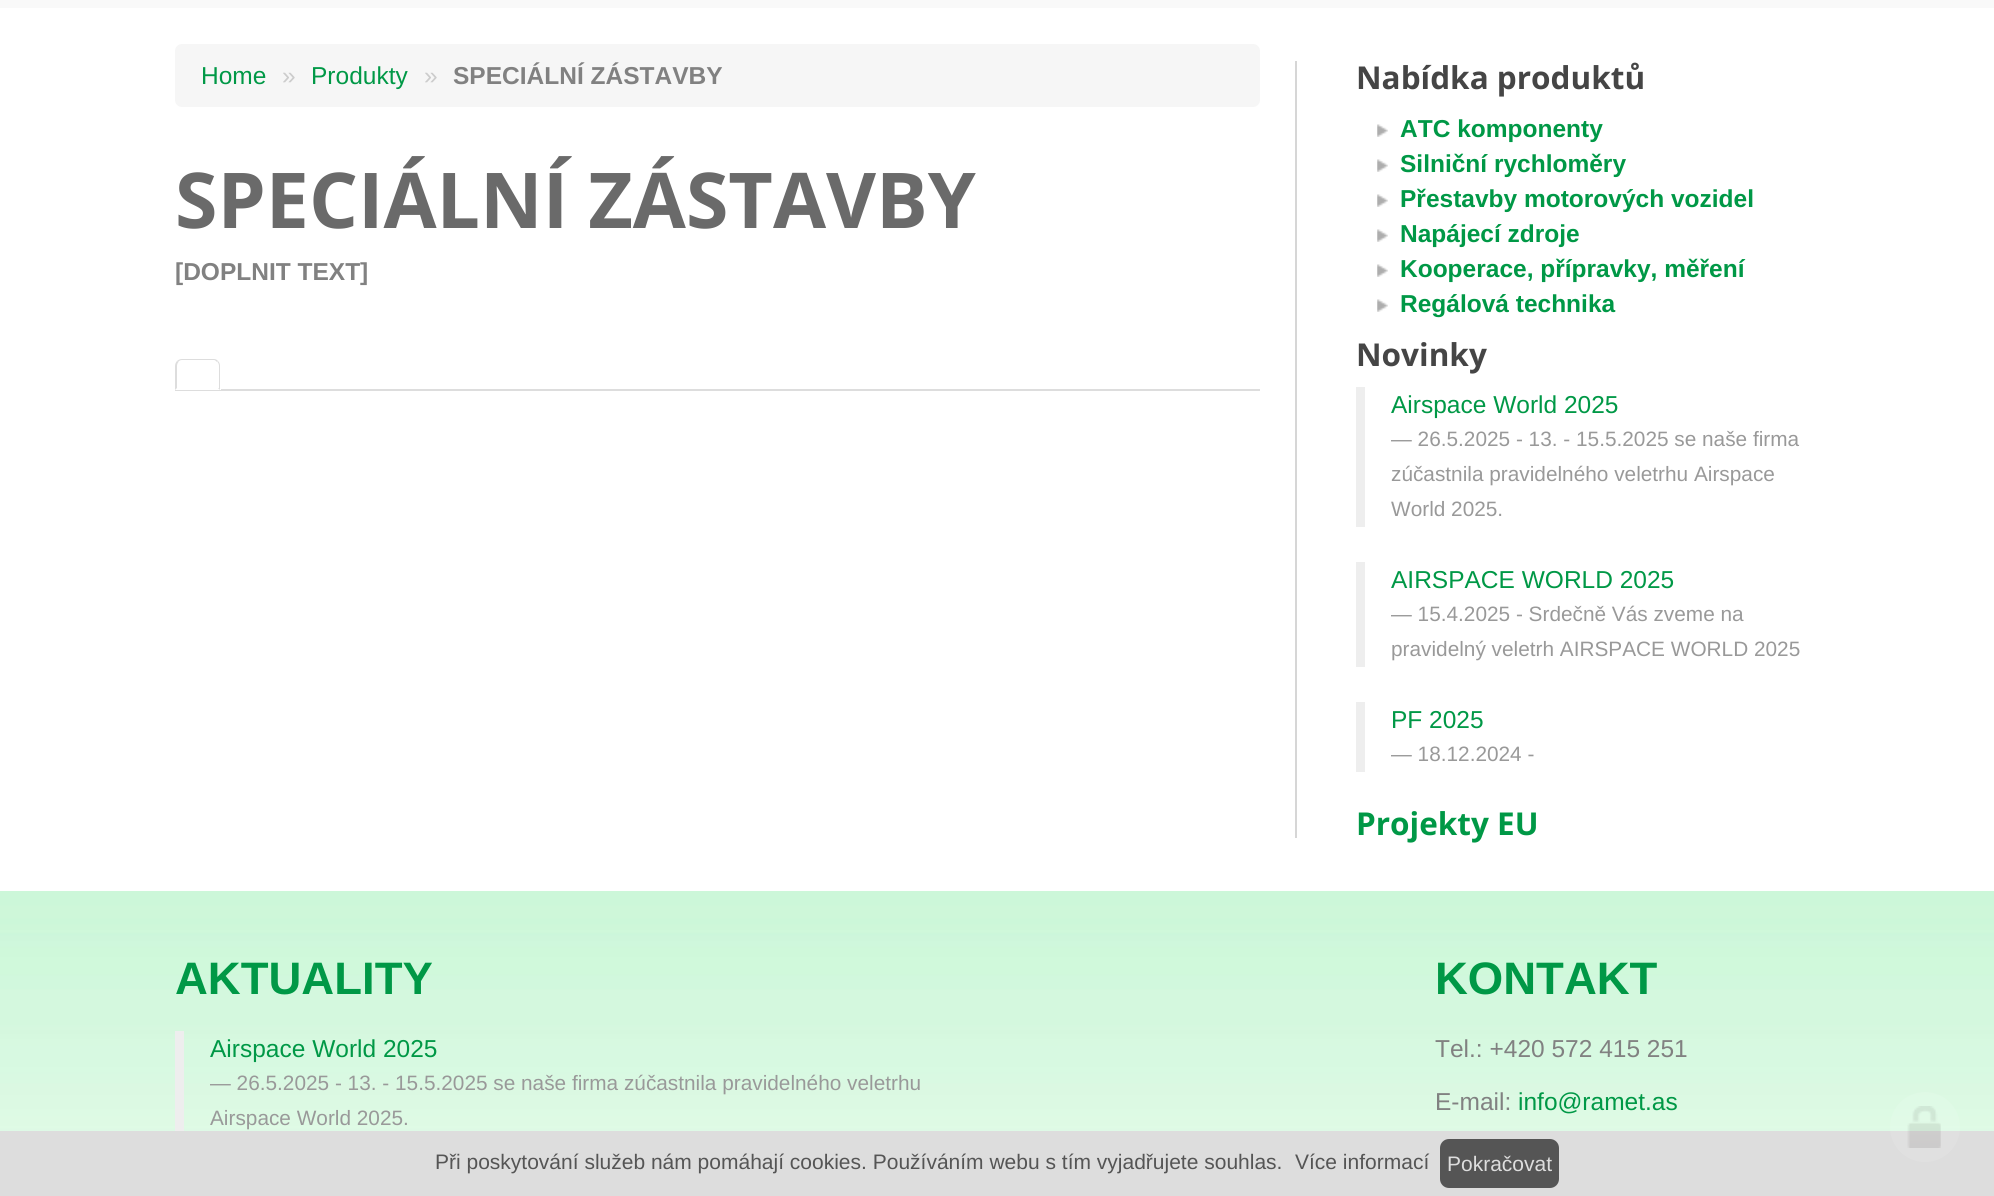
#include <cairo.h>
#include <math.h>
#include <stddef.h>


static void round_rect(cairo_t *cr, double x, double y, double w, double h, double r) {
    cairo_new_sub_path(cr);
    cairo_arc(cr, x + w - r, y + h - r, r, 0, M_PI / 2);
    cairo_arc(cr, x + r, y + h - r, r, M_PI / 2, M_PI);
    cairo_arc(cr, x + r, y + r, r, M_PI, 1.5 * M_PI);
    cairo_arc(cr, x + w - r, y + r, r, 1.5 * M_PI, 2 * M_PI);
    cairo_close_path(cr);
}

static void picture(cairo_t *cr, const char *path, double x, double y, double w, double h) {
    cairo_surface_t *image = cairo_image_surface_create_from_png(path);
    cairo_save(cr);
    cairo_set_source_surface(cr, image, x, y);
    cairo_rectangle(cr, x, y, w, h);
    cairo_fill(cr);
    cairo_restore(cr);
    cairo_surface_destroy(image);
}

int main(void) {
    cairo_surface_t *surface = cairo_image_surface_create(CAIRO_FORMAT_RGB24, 1994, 1196);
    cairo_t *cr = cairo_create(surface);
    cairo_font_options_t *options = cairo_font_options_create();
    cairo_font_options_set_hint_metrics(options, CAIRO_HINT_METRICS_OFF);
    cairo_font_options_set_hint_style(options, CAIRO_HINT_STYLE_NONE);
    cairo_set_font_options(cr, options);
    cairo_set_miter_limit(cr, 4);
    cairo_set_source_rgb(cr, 1, 1, 1);
    cairo_paint(cr);
    cairo_set_source_rgb(cr, 0.973, 0.973, 0.973);
    cairo_rectangle(cr, 0, 0, 1994, 8);
    cairo_fill(cr);
    cairo_set_source_rgb(cr, 0.961, 0.961, 0.961);
    round_rect(cr, 175, 44, 1085, 63, 7);
    cairo_fill(cr);
    cairo_select_font_face(cr, "Liberation Sans", CAIRO_FONT_SLANT_NORMAL, CAIRO_FONT_WEIGHT_NORMAL);
    cairo_set_font_size(cr, 24.5);
    cairo_set_source_rgb(cr, 0, 0.596, 0.275);
    cairo_move_to(cr, 201, 84);
    cairo_show_text(cr, "Home");
    cairo_set_source_rgb(cr, 0.8, 0.8, 0.8);
    cairo_move_to(cr, 282, 84);
    cairo_show_text(cr, "»");
    cairo_set_source_rgb(cr, 0, 0.596, 0.275);
    cairo_move_to(cr, 311, 84);
    cairo_show_text(cr, "Produkty");
    cairo_set_source_rgb(cr, 0.8, 0.8, 0.8);
    cairo_move_to(cr, 424, 84);
    cairo_show_text(cr, "»");
    cairo_select_font_face(cr, "Liberation Sans", CAIRO_FONT_SLANT_NORMAL, CAIRO_FONT_WEIGHT_BOLD);
    cairo_set_source_rgb(cr, 0.506, 0.506, 0.506);
    cairo_move_to(cr, 453, 84);
    cairo_show_text(cr, "SPECIÁLNÍ ZÁSTAVBY");
    cairo_select_font_face(cr, "Open Sans", CAIRO_FONT_SLANT_NORMAL, CAIRO_FONT_WEIGHT_BOLD);
    cairo_set_font_size(cr, 77);
    cairo_set_source_rgb(cr, 0.416, 0.416, 0.416);
    cairo_move_to(cr, 175, 228);
    cairo_show_text(cr, "SPECIÁLNÍ ZÁSTAVBY");
    cairo_select_font_face(cr, "Liberation Sans", CAIRO_FONT_SLANT_NORMAL, CAIRO_FONT_WEIGHT_BOLD);
    cairo_set_font_size(cr, 24.5);
    cairo_set_source_rgb(cr, 0.506, 0.506, 0.506);
    cairo_move_to(cr, 175, 280);
    cairo_show_text(cr, "[DOPLNIT TEXT]");
    cairo_set_source_rgb(cr, 0.867, 0.867, 0.867);
    cairo_rectangle(cr, 175, 389, 1085, 2);
    cairo_fill(cr);
    cairo_set_source_rgb(cr, 1, 1, 1);
    cairo_new_path(cr);
    cairo_move_to(cr, 182, 359);
    cairo_line_to(cr, 214, 359);
    cairo_curve_to(cr, 218, 359, 221, 362, 221, 366);
    cairo_line_to(cr, 221, 390);
    cairo_line_to(cr, 175, 390);
    cairo_line_to(cr, 175, 366);
    cairo_curve_to(cr, 175, 362, 178, 359, 182, 359);
    cairo_close_path(cr);
    cairo_fill(cr);
    cairo_set_source_rgb(cr, 0.867, 0.867, 0.867);
    cairo_new_path(cr);
    cairo_move_to(cr, 182, 359);
    cairo_curve_to(cr, 180, 359, 178, 360, 177, 361);
    cairo_line_to(cr, 178, 362);
    cairo_curve_to(cr, 179, 361, 180, 360, 182, 360);
    cairo_line_to(cr, 214, 360);
    cairo_curve_to(cr, 215, 360, 216, 361, 217, 362);
    cairo_line_to(cr, 218, 361);
    cairo_curve_to(cr, 217, 360, 216, 359, 214, 359);
    cairo_close_path(cr);
    cairo_fill(cr);
    cairo_new_path(cr);
    cairo_move_to(cr, 220, 390);
    cairo_line_to(cr, 220, 366);
    cairo_curve_to(cr, 220, 364, 219.5, 362.5, 218, 361);
    cairo_line_to(cr, 217.5, 362);
    cairo_curve_to(cr, 218.5, 363, 219, 364.5, 219, 366);
    cairo_line_to(cr, 219, 388);
    cairo_line_to(cr, 218, 388);
    cairo_close_path(cr);
    cairo_move_to(cr, 175, 366);
    cairo_line_to(cr, 175, 390);
    cairo_line_to(cr, 177, 388);
    cairo_line_to(cr, 177, 366);
    cairo_curve_to(cr, 177, 364.5, 177.5, 363, 178.5, 362);
    cairo_line_to(cr, 177, 361);
    cairo_curve_to(cr, 176, 362, 175, 364, 175, 366);
    cairo_close_path(cr);
    cairo_fill(cr);
    cairo_set_source_rgb(cr, 0.839, 0.839, 0.839);
    cairo_rectangle(cr, 1295, 61, 2, 777);
    cairo_fill(cr);
    cairo_select_font_face(cr, "Open Sans", CAIRO_FONT_SLANT_NORMAL, CAIRO_FONT_WEIGHT_BOLD);
    cairo_set_font_size(cr, 31.5);
    cairo_set_source_rgb(cr, 0.271, 0.271, 0.271);
    cairo_move_to(cr, 1356, 89);
    cairo_show_text(cr, "Nabídka produktů");
    picture(cr, "img1.png", 1377, 124, 11, 13);
    cairo_select_font_face(cr, "Liberation Sans", CAIRO_FONT_SLANT_NORMAL, CAIRO_FONT_WEIGHT_BOLD);
    cairo_set_font_size(cr, 24.5);
    cairo_set_source_rgb(cr, 0, 0.596, 0.275);
    cairo_move_to(cr, 1400, 137);
    cairo_show_text(cr, "ATC komponenty");
    picture(cr, "img1.png", 1377, 159, 11, 13);
    cairo_move_to(cr, 1400, 172);
    cairo_show_text(cr, "Silniční rychloměry");
    picture(cr, "img1.png", 1377, 194, 11, 13);
    cairo_move_to(cr, 1400, 207);
    cairo_show_text(cr, "Přestavby motorových vozidel");
    picture(cr, "img1.png", 1377, 229, 11, 13);
    cairo_move_to(cr, 1400, 242);
    cairo_show_text(cr, "Napájecí zdroje");
    picture(cr, "img1.png", 1377, 264, 11, 13);
    cairo_move_to(cr, 1400, 277);
    cairo_show_text(cr, "Kooperace, přípravky, měření");
    picture(cr, "img1.png", 1377, 299, 11, 13);
    cairo_move_to(cr, 1400, 312);
    cairo_show_text(cr, "Regálová technika");
    cairo_select_font_face(cr, "Open Sans", CAIRO_FONT_SLANT_NORMAL, CAIRO_FONT_WEIGHT_BOLD);
    cairo_set_font_size(cr, 31.5);
    cairo_set_source_rgb(cr, 0.271, 0.271, 0.271);
    cairo_move_to(cr, 1356, 366);
    cairo_show_text(cr, "Novinky");
    cairo_set_source_rgb(cr, 0.933, 0.933, 0.933);
    cairo_rectangle(cr, 1356, 387, 9, 140);
    cairo_fill(cr);
    cairo_select_font_face(cr, "Liberation Sans", CAIRO_FONT_SLANT_NORMAL, CAIRO_FONT_WEIGHT_NORMAL);
    cairo_set_font_size(cr, 24.5);
    cairo_set_source_rgb(cr, 0, 0.596, 0.275);
    cairo_move_to(cr, 1391, 413);
    cairo_show_text(cr, "Airspace World 2025");
    cairo_set_font_size(cr, 20.8);
    cairo_set_source_rgb(cr, 0.6, 0.6, 0.6);
    cairo_move_to(cr, 1391, 446);
    cairo_show_text(cr, "— 26.5.2025 - 13. - 15.5.2025 se naše firma");
    cairo_move_to(cr, 1391, 481);
    cairo_show_text(cr, "zúčastnila pravidelného veletrhu Airspace");
    cairo_move_to(cr, 1391, 516);
    cairo_show_text(cr, "World 2025.");
    cairo_set_source_rgb(cr, 0.933, 0.933, 0.933);
    cairo_rectangle(cr, 1356, 562, 9, 105);
    cairo_fill(cr);
    cairo_set_font_size(cr, 24.5);
    cairo_set_source_rgb(cr, 0, 0.596, 0.275);
    cairo_move_to(cr, 1391, 588);
    cairo_show_text(cr, "AIRSPACE WORLD 2025");
    cairo_set_font_size(cr, 20.8);
    cairo_set_source_rgb(cr, 0.6, 0.6, 0.6);
    cairo_move_to(cr, 1391, 621);
    cairo_show_text(cr, "— 15.4.2025 - Srdečně Vás zveme na");
    cairo_move_to(cr, 1391, 656);
    cairo_show_text(cr, "pravidelný veletrh AIRSPACE WORLD 2025");
    cairo_set_source_rgb(cr, 0.933, 0.933, 0.933);
    cairo_rectangle(cr, 1356, 702, 9, 70);
    cairo_fill(cr);
    cairo_set_font_size(cr, 24.5);
    cairo_set_source_rgb(cr, 0, 0.596, 0.275);
    cairo_move_to(cr, 1391, 728);
    cairo_show_text(cr, "PF 2025");
    cairo_set_font_size(cr, 20.8);
    cairo_set_source_rgb(cr, 0.6, 0.6, 0.6);
    cairo_move_to(cr, 1391, 761);
    cairo_show_text(cr, "— 18.12.2024 -");
    cairo_select_font_face(cr, "Open Sans", CAIRO_FONT_SLANT_NORMAL, CAIRO_FONT_WEIGHT_BOLD);
    cairo_set_font_size(cr, 31.5);
    cairo_set_source_rgb(cr, 0, 0.596, 0.275);
    cairo_move_to(cr, 1356, 835);
    cairo_show_text(cr, "Projekty EU");
    picture(cr, "img2.png", 0, 891, 1994, 240);
    cairo_select_font_face(cr, "Liberation Sans", CAIRO_FONT_SLANT_NORMAL, CAIRO_FONT_WEIGHT_BOLD);
    cairo_set_font_size(cr, 45.5);
    cairo_move_to(cr, 175, 994);
    cairo_show_text(cr, "AKTUALITY");
    cairo_set_source_rgb(cr, 0.933, 0.933, 0.933);
    cairo_rectangle(cr, 175, 1031, 9, 100);
    cairo_fill(cr);
    cairo_select_font_face(cr, "Liberation Sans", CAIRO_FONT_SLANT_NORMAL, CAIRO_FONT_WEIGHT_NORMAL);
    cairo_set_font_size(cr, 24.5);
    cairo_set_source_rgb(cr, 0, 0.596, 0.275);
    cairo_move_to(cr, 210, 1057);
    cairo_show_text(cr, "Airspace World 2025");
    cairo_set_font_size(cr, 20.8);
    cairo_set_source_rgb(cr, 0.6, 0.6, 0.6);
    cairo_move_to(cr, 210, 1090);
    cairo_show_text(cr, "— 26.5.2025 - 13. - 15.5.2025 se naše firma zúčastnila pravidelného veletrhu");
    cairo_move_to(cr, 210, 1125);
    cairo_show_text(cr, "Airspace World 2025.");
    cairo_select_font_face(cr, "Liberation Sans", CAIRO_FONT_SLANT_NORMAL, CAIRO_FONT_WEIGHT_BOLD);
    cairo_set_font_size(cr, 45.5);
    cairo_set_source_rgb(cr, 0, 0.596, 0.275);
    cairo_move_to(cr, 1435, 994);
    cairo_show_text(cr, "KONTAKT");
    cairo_select_font_face(cr, "Liberation Sans", CAIRO_FONT_SLANT_NORMAL, CAIRO_FONT_WEIGHT_NORMAL);
    cairo_set_font_size(cr, 24.5);
    cairo_set_source_rgb(cr, 0.506, 0.506, 0.506);
    cairo_move_to(cr, 1435, 1057);
    cairo_show_text(cr, "Tel.: +420 572 415 251");
    cairo_move_to(cr, 1435, 1110);
    cairo_show_text(cr, "E-mail:");
    cairo_set_source_rgb(cr, 0, 0.596, 0.275);
    cairo_move_to(cr, 1518, 1110);
    cairo_show_text(cr, "info@ramet.as");
    cairo_set_source_rgb(cr, 0.867, 0.867, 0.867);
    cairo_rectangle(cr, 0, 1131, 1994, 65);
    cairo_fill(cr);
    cairo_set_source_rgba(cr, 1, 1, 1, 0.1);
    cairo_arc(cr, 1925, 1127, 35, 0, 2 * M_PI);
    cairo_fill(cr);
    picture(cr, "img3.png", 1907, 1106, 34, 42);
    cairo_set_font_size(cr, 21);
    cairo_set_source_rgb(cr, 0.333, 0.333, 0.333);
    cairo_move_to(cr, 435, 1169);
    cairo_show_text(cr, "Při poskytování služeb nám pomáhají cookies. Používáním webu s tím vyjadřujete souhlas.");
    cairo_move_to(cr, 1295, 1169);
    cairo_show_text(cr, "Více informací");
    round_rect(cr, 1440, 1139, 119, 49, 9);
    cairo_fill(cr);
    cairo_set_source_rgb(cr, 0.867, 0.867, 0.867);
    cairo_move_to(cr, 1447, 1171);
    cairo_show_text(cr, "Pokračovat");
    cairo_surface_write_to_png(surface, "page.png");
    cairo_font_options_destroy(options);
    cairo_destroy(cr);
    cairo_surface_destroy(surface);
    return 0;
}
